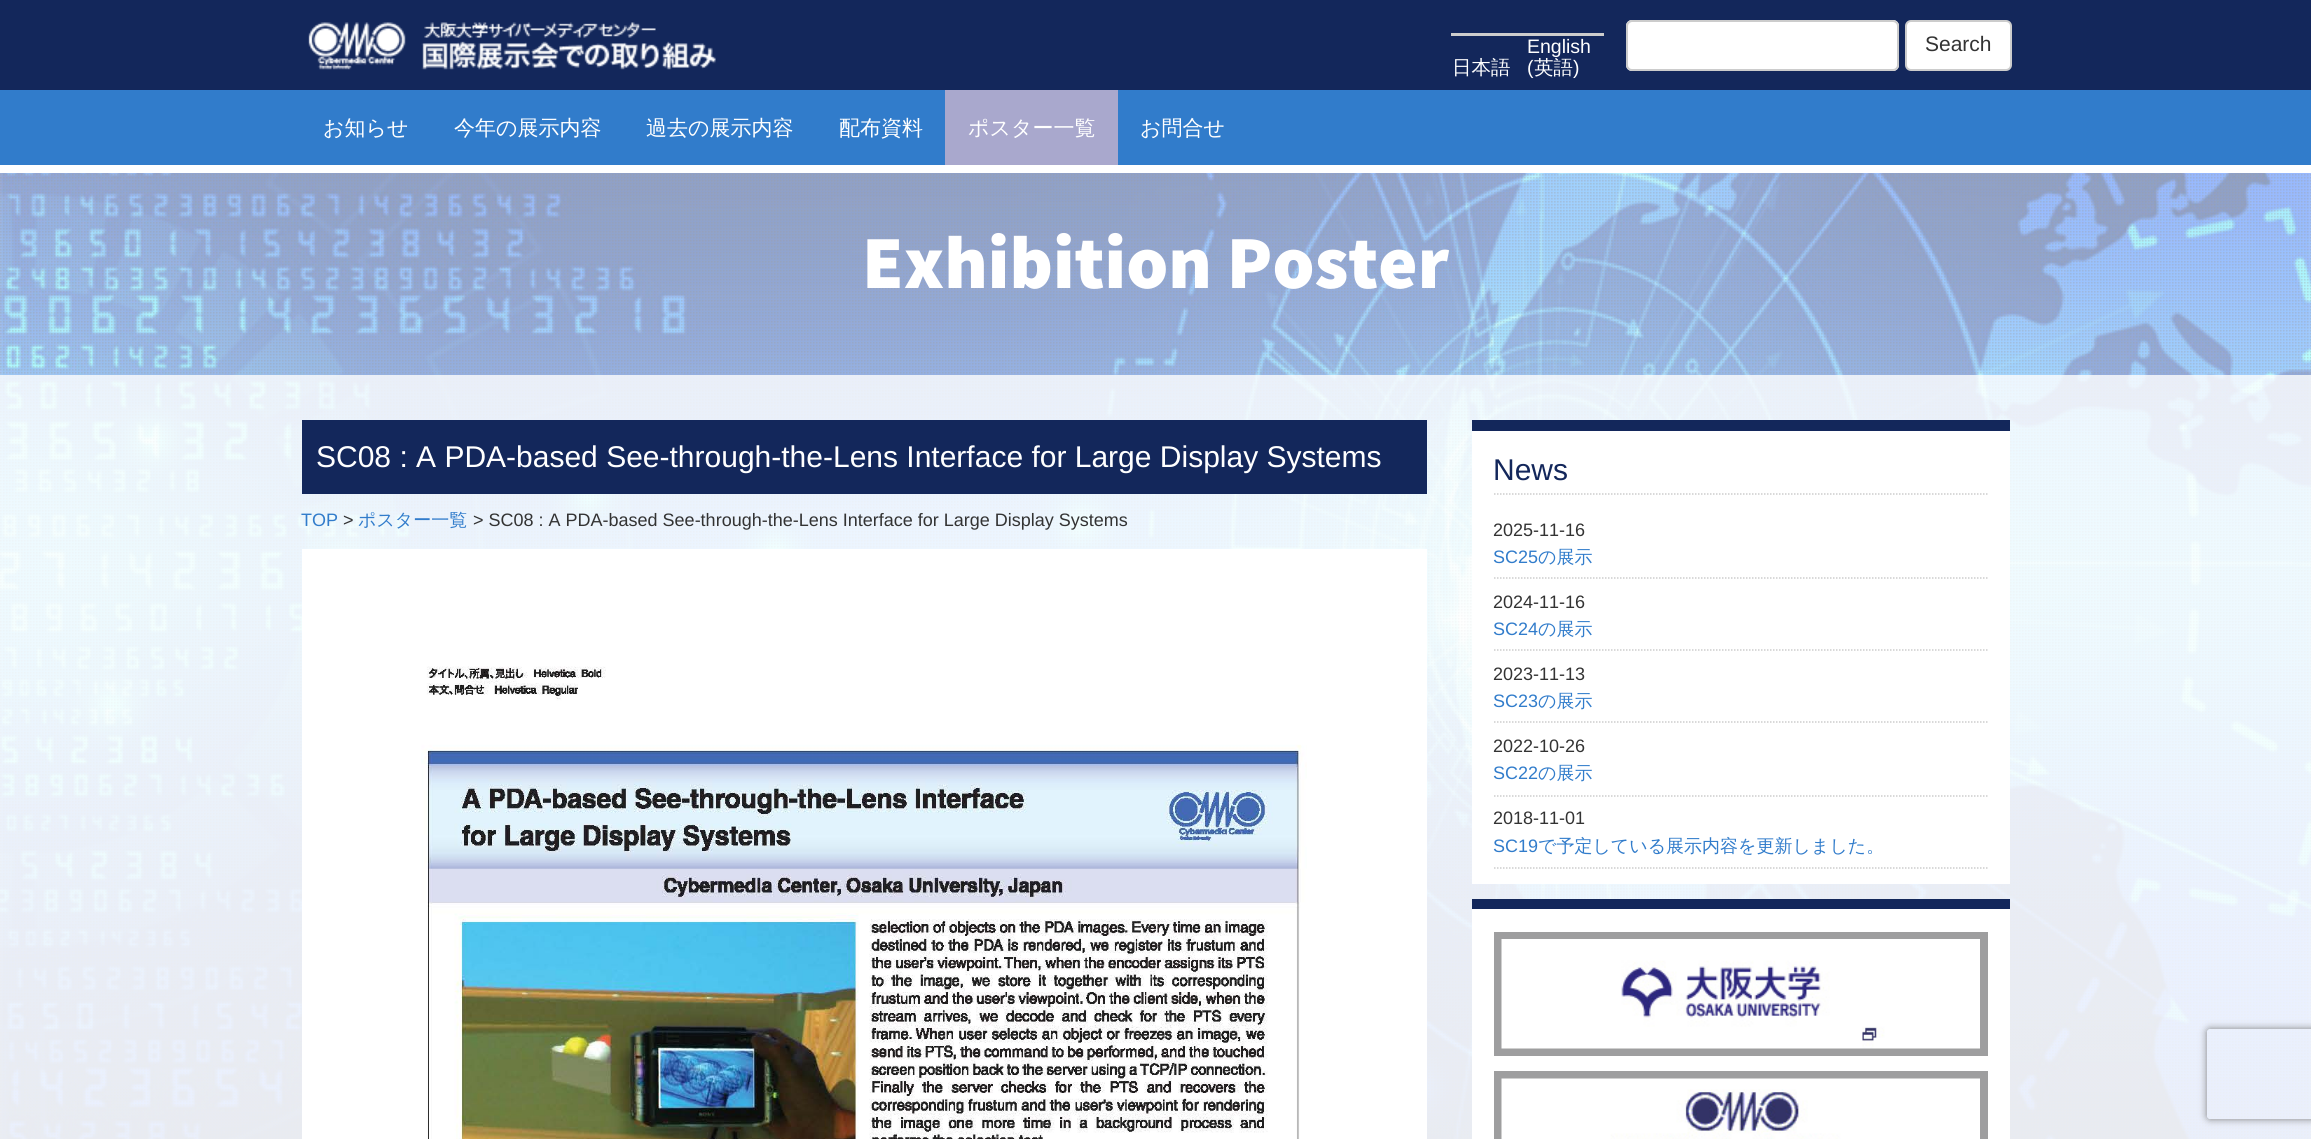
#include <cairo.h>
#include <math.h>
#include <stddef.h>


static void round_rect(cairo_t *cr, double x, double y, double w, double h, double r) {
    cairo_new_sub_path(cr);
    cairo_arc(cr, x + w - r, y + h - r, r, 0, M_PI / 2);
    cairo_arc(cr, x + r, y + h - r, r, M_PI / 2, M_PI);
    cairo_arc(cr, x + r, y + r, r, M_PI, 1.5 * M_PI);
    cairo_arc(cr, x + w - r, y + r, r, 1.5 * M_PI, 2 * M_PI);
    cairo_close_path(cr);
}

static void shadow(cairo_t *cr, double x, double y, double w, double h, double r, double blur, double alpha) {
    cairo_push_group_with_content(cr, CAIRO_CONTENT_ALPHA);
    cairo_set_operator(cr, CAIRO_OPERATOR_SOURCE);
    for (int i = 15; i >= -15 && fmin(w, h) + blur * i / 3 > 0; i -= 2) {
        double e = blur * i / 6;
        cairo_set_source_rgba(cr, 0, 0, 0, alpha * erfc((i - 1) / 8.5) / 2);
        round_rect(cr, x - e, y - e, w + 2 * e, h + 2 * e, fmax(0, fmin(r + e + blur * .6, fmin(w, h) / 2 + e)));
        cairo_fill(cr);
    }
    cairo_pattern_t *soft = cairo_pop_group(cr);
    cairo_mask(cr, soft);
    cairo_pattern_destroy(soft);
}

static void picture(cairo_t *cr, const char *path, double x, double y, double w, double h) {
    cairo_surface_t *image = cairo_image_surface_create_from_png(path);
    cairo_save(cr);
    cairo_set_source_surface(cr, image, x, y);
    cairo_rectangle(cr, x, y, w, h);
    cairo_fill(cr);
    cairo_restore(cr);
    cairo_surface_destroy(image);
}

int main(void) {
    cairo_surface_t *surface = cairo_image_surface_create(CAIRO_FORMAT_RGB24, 2311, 1139);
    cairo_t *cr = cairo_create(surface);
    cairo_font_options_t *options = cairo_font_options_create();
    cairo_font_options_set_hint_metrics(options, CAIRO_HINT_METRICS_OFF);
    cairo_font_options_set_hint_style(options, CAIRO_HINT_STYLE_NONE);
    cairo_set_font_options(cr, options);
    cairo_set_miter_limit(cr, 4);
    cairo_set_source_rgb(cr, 1, 1, 1);
    cairo_paint(cr);
    cairo_set_source_rgb(cr, 0.078, 0.153, 0.357);
    cairo_rectangle(cr, 0, 0, 2311, 90);
    cairo_fill(cr);
    picture(cr, "img1.png", 308, 22, 408, 48);
    cairo_set_source_rgb(cr, 0.804, 0.804, 0.804);
    cairo_rectangle(cr, 1451, 33, 153, 3);
    cairo_fill(cr);
    cairo_select_font_face(cr, "WenQuanYi Zen Hei Medium", CAIRO_FONT_SLANT_NORMAL, CAIRO_FONT_WEIGHT_NORMAL);
    cairo_set_font_size(cr, 19.5);
    cairo_set_source_rgb(cr, 1, 1, 1);
    cairo_move_to(cr, 1452, 74);
    cairo_show_text(cr, "日本語");
    cairo_select_font_face(cr, "Liberation Sans", CAIRO_FONT_SLANT_NORMAL, CAIRO_FONT_WEIGHT_NORMAL);
    cairo_move_to(cr, 1527, 53);
    cairo_show_text(cr, "English");
    cairo_move_to(cr, 1527, 74);
    cairo_show_text(cr, "(");
    cairo_select_font_face(cr, "WenQuanYi Zen Hei Medium", CAIRO_FONT_SLANT_NORMAL, CAIRO_FONT_WEIGHT_NORMAL);
    cairo_move_to(cr, 1534, 74);
    cairo_show_text(cr, "英語");
    cairo_select_font_face(cr, "Liberation Sans", CAIRO_FONT_SLANT_NORMAL, CAIRO_FONT_WEIGHT_NORMAL);
    cairo_move_to(cr, 1573, 74);
    cairo_show_text(cr, ")");
    round_rect(cr, 1626, 20, 273, 51, 6);
    cairo_fill(cr);
    cairo_set_source_rgb(cr, 0.925, 0.925, 0.925);
    cairo_new_path(cr);
    cairo_move_to(cr, 1632, 22);
    cairo_line_to(cr, 1893, 22);
    cairo_curve_to(cr, 1895, 22, 1898, 25, 1898, 27);
    cairo_curve_to(cr, 1898, 24, 1896, 21, 1893, 21);
    cairo_line_to(cr, 1633, 21);
    cairo_curve_to(cr, 1630, 21, 1628, 24, 1628, 27);
    cairo_curve_to(cr, 1628, 25, 1630, 22, 1632, 22);
    cairo_close_path(cr);
    cairo_fill(cr);
    round_rect(cr, 1627, 21, 271, 49, 5);
    cairo_set_source_rgb(cr, 0.8, 0.8, 0.8);
    cairo_stroke(cr);
    cairo_set_source_rgb(cr, 1, 1, 1);
    round_rect(cr, 1906, 21, 105, 49, 5);
    cairo_fill_preserve(cr);
    cairo_set_source_rgb(cr, 0.8, 0.8, 0.8);
    cairo_stroke(cr);
    cairo_set_font_size(cr, 21);
    cairo_set_source_rgb(cr, 0.2, 0.2, 0.2);
    cairo_move_to(cr, 1925, 51);
    cairo_show_text(cr, "Search");
    cairo_set_source_rgb(cr, 0.192, 0.486, 0.796);
    cairo_rectangle(cr, 0, 90, 2311, 75);
    cairo_fill(cr);
    cairo_select_font_face(cr, "WenQuanYi Zen Hei Medium", CAIRO_FONT_SLANT_NORMAL, CAIRO_FONT_WEIGHT_NORMAL);
    cairo_set_source_rgb(cr, 1, 1, 1);
    cairo_move_to(cr, 323, 135);
    cairo_show_text(cr, "お知らせ");
    cairo_move_to(cr, 454, 135);
    cairo_show_text(cr, "今年の展示内容");
    cairo_move_to(cr, 646, 135);
    cairo_show_text(cr, "過去の展示内容");
    cairo_move_to(cr, 839, 135);
    cairo_show_text(cr, "配布資料");
    cairo_set_source_rgb(cr, 0.663, 0.659, 0.804);
    cairo_rectangle(cr, 945, 90, 173, 75);
    cairo_fill(cr);
    cairo_set_source_rgb(cr, 1, 1, 1);
    cairo_move_to(cr, 968, 135);
    cairo_show_text(cr, "ポスター一覧");
    cairo_move_to(cr, 1140, 135);
    cairo_show_text(cr, "お問合せ");
    picture(cr, "img2.png", 0, 173, 2311, 966);
    picture(cr, "img3.png", 0, 173, 2311, 966);
    cairo_select_font_face(cr, "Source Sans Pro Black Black", CAIRO_FONT_SLANT_NORMAL, CAIRO_FONT_WEIGHT_NORMAL);
    cairo_set_font_size(cr, 75);
    cairo_move_to(cr, 862, 288);
    cairo_show_text(cr, "Exhibition Poster");
    cairo_set_source_rgba(cr, 1, 1, 1, 0.8);
    cairo_rectangle(cr, 0, 375, 2311, 764);
    cairo_fill(cr);
    cairo_set_source_rgb(cr, 0.078, 0.153, 0.357);
    cairo_rectangle(cr, 302, 420, 1125, 74);
    cairo_fill(cr);
    cairo_select_font_face(cr, "Liberation Sans", CAIRO_FONT_SLANT_NORMAL, CAIRO_FONT_WEIGHT_NORMAL);
    cairo_set_font_size(cr, 30);
    cairo_set_source_rgb(cr, 1, 1, 1);
    cairo_move_to(cr, 316, 467);
    cairo_show_text(cr, "SC08 : A PDA-based See-through-the-Lens Interface for Large Display Systems");
    cairo_set_font_size(cr, 18);
    cairo_set_source_rgb(cr, 0.192, 0.486, 0.796);
    cairo_move_to(cr, 301, 526);
    cairo_show_text(cr, "TOP");
    cairo_set_source_rgb(cr, 0.2, 0.2, 0.2);
    cairo_move_to(cr, 343, 526);
    cairo_show_text(cr, ">");
    cairo_select_font_face(cr, "WenQuanYi Zen Hei Medium", CAIRO_FONT_SLANT_NORMAL, CAIRO_FONT_WEIGHT_NORMAL);
    cairo_set_source_rgb(cr, 0.192, 0.486, 0.796);
    cairo_move_to(cr, 358, 526);
    cairo_show_text(cr, "ポスター一覧");
    cairo_select_font_face(cr, "Liberation Sans", CAIRO_FONT_SLANT_NORMAL, CAIRO_FONT_WEIGHT_NORMAL);
    cairo_set_source_rgb(cr, 0.2, 0.2, 0.2);
    cairo_move_to(cr, 473, 526);
    cairo_show_text(cr, "> SC08 : A PDA-based See-through-the-Lens Interface for Large Display Systems");
    cairo_set_source_rgb(cr, 1, 1, 1);
    cairo_rectangle(cr, 302, 549, 1125, 590);
    cairo_fill(cr);
    picture(cr, "img4.png", 421, 666, 886, 473);
    cairo_rectangle(cr, 1472, 431, 538, 453);
    cairo_fill(cr);
    cairo_set_source_rgb(cr, 0.078, 0.153, 0.357);
    cairo_rectangle(cr, 1472, 420, 538, 11);
    cairo_fill(cr);
    cairo_new_path(cr);
    cairo_move_to(cr, 1494, 494);
    cairo_line_to(cr, 1987.5, 494);
    cairo_set_source_rgb(cr, 0.8, 0.8, 0.8);
    cairo_set_line_width(cr, 1.5);
    cairo_set_dash(cr, (double[]){1.5, 1.5}, 2, 0);
    cairo_stroke(cr);
    cairo_set_font_size(cr, 30);
    cairo_set_source_rgb(cr, 0.078, 0.153, 0.357);
    cairo_move_to(cr, 1493, 480);
    cairo_show_text(cr, "News");
    cairo_set_font_size(cr, 18);
    cairo_set_source_rgb(cr, 0.2, 0.2, 0.2);
    cairo_move_to(cr, 1493, 536);
    cairo_show_text(cr, "2025-11-16");
    cairo_new_path(cr);
    cairo_move_to(cr, 1494, 578);
    cairo_line_to(cr, 1987.5, 578);
    cairo_set_source_rgb(cr, 0.8, 0.8, 0.8);
    cairo_stroke(cr);
    cairo_set_source_rgb(cr, 0.192, 0.486, 0.796);
    cairo_move_to(cr, 1493, 563);
    cairo_show_text(cr, "SC25");
    cairo_select_font_face(cr, "WenQuanYi Zen Hei Medium", CAIRO_FONT_SLANT_NORMAL, CAIRO_FONT_WEIGHT_NORMAL);
    cairo_move_to(cr, 1538, 563);
    cairo_show_text(cr, "の展示");
    cairo_select_font_face(cr, "Liberation Sans", CAIRO_FONT_SLANT_NORMAL, CAIRO_FONT_WEIGHT_NORMAL);
    cairo_set_source_rgb(cr, 0.2, 0.2, 0.2);
    cairo_move_to(cr, 1493, 608);
    cairo_show_text(cr, "2024-11-16");
    cairo_new_path(cr);
    cairo_move_to(cr, 1494, 650);
    cairo_line_to(cr, 1987.5, 650);
    cairo_set_source_rgb(cr, 0.8, 0.8, 0.8);
    cairo_stroke(cr);
    cairo_set_source_rgb(cr, 0.192, 0.486, 0.796);
    cairo_move_to(cr, 1493, 635);
    cairo_show_text(cr, "SC24");
    cairo_select_font_face(cr, "WenQuanYi Zen Hei Medium", CAIRO_FONT_SLANT_NORMAL, CAIRO_FONT_WEIGHT_NORMAL);
    cairo_move_to(cr, 1538, 635);
    cairo_show_text(cr, "の展示");
    cairo_select_font_face(cr, "Liberation Sans", CAIRO_FONT_SLANT_NORMAL, CAIRO_FONT_WEIGHT_NORMAL);
    cairo_set_source_rgb(cr, 0.2, 0.2, 0.2);
    cairo_move_to(cr, 1493, 680);
    cairo_show_text(cr, "2023-11-13");
    cairo_new_path(cr);
    cairo_move_to(cr, 1494, 722);
    cairo_line_to(cr, 1987.5, 722);
    cairo_set_source_rgb(cr, 0.8, 0.8, 0.8);
    cairo_stroke(cr);
    cairo_set_source_rgb(cr, 0.192, 0.486, 0.796);
    cairo_move_to(cr, 1493, 707);
    cairo_show_text(cr, "SC23");
    cairo_select_font_face(cr, "WenQuanYi Zen Hei Medium", CAIRO_FONT_SLANT_NORMAL, CAIRO_FONT_WEIGHT_NORMAL);
    cairo_move_to(cr, 1538, 707);
    cairo_show_text(cr, "の展示");
    cairo_select_font_face(cr, "Liberation Sans", CAIRO_FONT_SLANT_NORMAL, CAIRO_FONT_WEIGHT_NORMAL);
    cairo_set_source_rgb(cr, 0.2, 0.2, 0.2);
    cairo_move_to(cr, 1493, 752);
    cairo_show_text(cr, "2022-10-26");
    cairo_new_path(cr);
    cairo_move_to(cr, 1494, 796);
    cairo_line_to(cr, 1987.5, 796);
    cairo_set_source_rgb(cr, 0.8, 0.8, 0.8);
    cairo_stroke(cr);
    cairo_set_source_rgb(cr, 0.192, 0.486, 0.796);
    cairo_move_to(cr, 1493, 779);
    cairo_show_text(cr, "SC22");
    cairo_select_font_face(cr, "WenQuanYi Zen Hei Medium", CAIRO_FONT_SLANT_NORMAL, CAIRO_FONT_WEIGHT_NORMAL);
    cairo_move_to(cr, 1538, 779);
    cairo_show_text(cr, "の展示");
    cairo_select_font_face(cr, "Liberation Sans", CAIRO_FONT_SLANT_NORMAL, CAIRO_FONT_WEIGHT_NORMAL);
    cairo_set_source_rgb(cr, 0.2, 0.2, 0.2);
    cairo_move_to(cr, 1493, 824);
    cairo_show_text(cr, "2018-11-01");
    cairo_new_path(cr);
    cairo_move_to(cr, 1494, 868);
    cairo_line_to(cr, 1987.5, 868);
    cairo_set_source_rgb(cr, 0.8, 0.8, 0.8);
    cairo_stroke(cr);
    cairo_set_source_rgb(cr, 0.192, 0.486, 0.796);
    cairo_move_to(cr, 1493, 852);
    cairo_show_text(cr, "SC19");
    cairo_select_font_face(cr, "WenQuanYi Zen Hei Medium", CAIRO_FONT_SLANT_NORMAL, CAIRO_FONT_WEIGHT_NORMAL);
    cairo_move_to(cr, 1538, 852);
    cairo_show_text(cr, "で予定している展示内容を更新しました。");
    cairo_set_source_rgb(cr, 1, 1, 1);
    cairo_rectangle(cr, 1472, 909, 538, 230);
    cairo_fill(cr);
    cairo_set_source_rgb(cr, 0.078, 0.153, 0.357);
    cairo_rectangle(cr, 1472, 899, 538, 10);
    cairo_fill(cr);
    cairo_rectangle(cr, 1498, 936, 486, 116);
    cairo_set_source_rgb(cr, 0.62, 0.62, 0.624);
    cairo_set_line_width(cr, 8);
    cairo_set_dash(cr, NULL, 0, 0);
    cairo_stroke(cr);
    picture(cr, "img5.png", 1501, 939, 479, 110);
    cairo_rectangle(cr, 1498, 1075, 486, 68);
    cairo_stroke(cr);
    picture(cr, "img6.png", 1501, 1078, 479, 61);
    cairo_save(cr);
    cairo_set_fill_rule(cr, CAIRO_FILL_RULE_EVEN_ODD);
    cairo_new_path(cr);
    cairo_move_to(cr, 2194, 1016);
    cairo_line_to(cr, 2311, 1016);
    cairo_line_to(cr, 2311, 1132);
    cairo_line_to(cr, 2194, 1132);
    cairo_close_path(cr);
    cairo_move_to(cr, 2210, 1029);
    cairo_line_to(cr, 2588, 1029);
    cairo_curve_to(cr, 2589.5, 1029, 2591, 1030.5, 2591, 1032);
    cairo_line_to(cr, 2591, 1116);
    cairo_curve_to(cr, 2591, 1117.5, 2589.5, 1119, 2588, 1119);
    cairo_line_to(cr, 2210, 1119);
    cairo_curve_to(cr, 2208.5, 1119, 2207, 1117.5, 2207, 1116);
    cairo_line_to(cr, 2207, 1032);
    cairo_curve_to(cr, 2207, 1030.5, 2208.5, 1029, 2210, 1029);
    cairo_close_path(cr);
    cairo_clip(cr);
    cairo_set_source_rgb(cr, 0.502, 0.502, 0.502);
    shadow(cr, 2207, 1029, 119, 90, 3, 4, 1);
    cairo_restore(cr);
    cairo_surface_write_to_png(surface, "page.png");
    cairo_font_options_destroy(options);
    cairo_destroy(cr);
    cairo_surface_destroy(surface);
    return 0;
}
